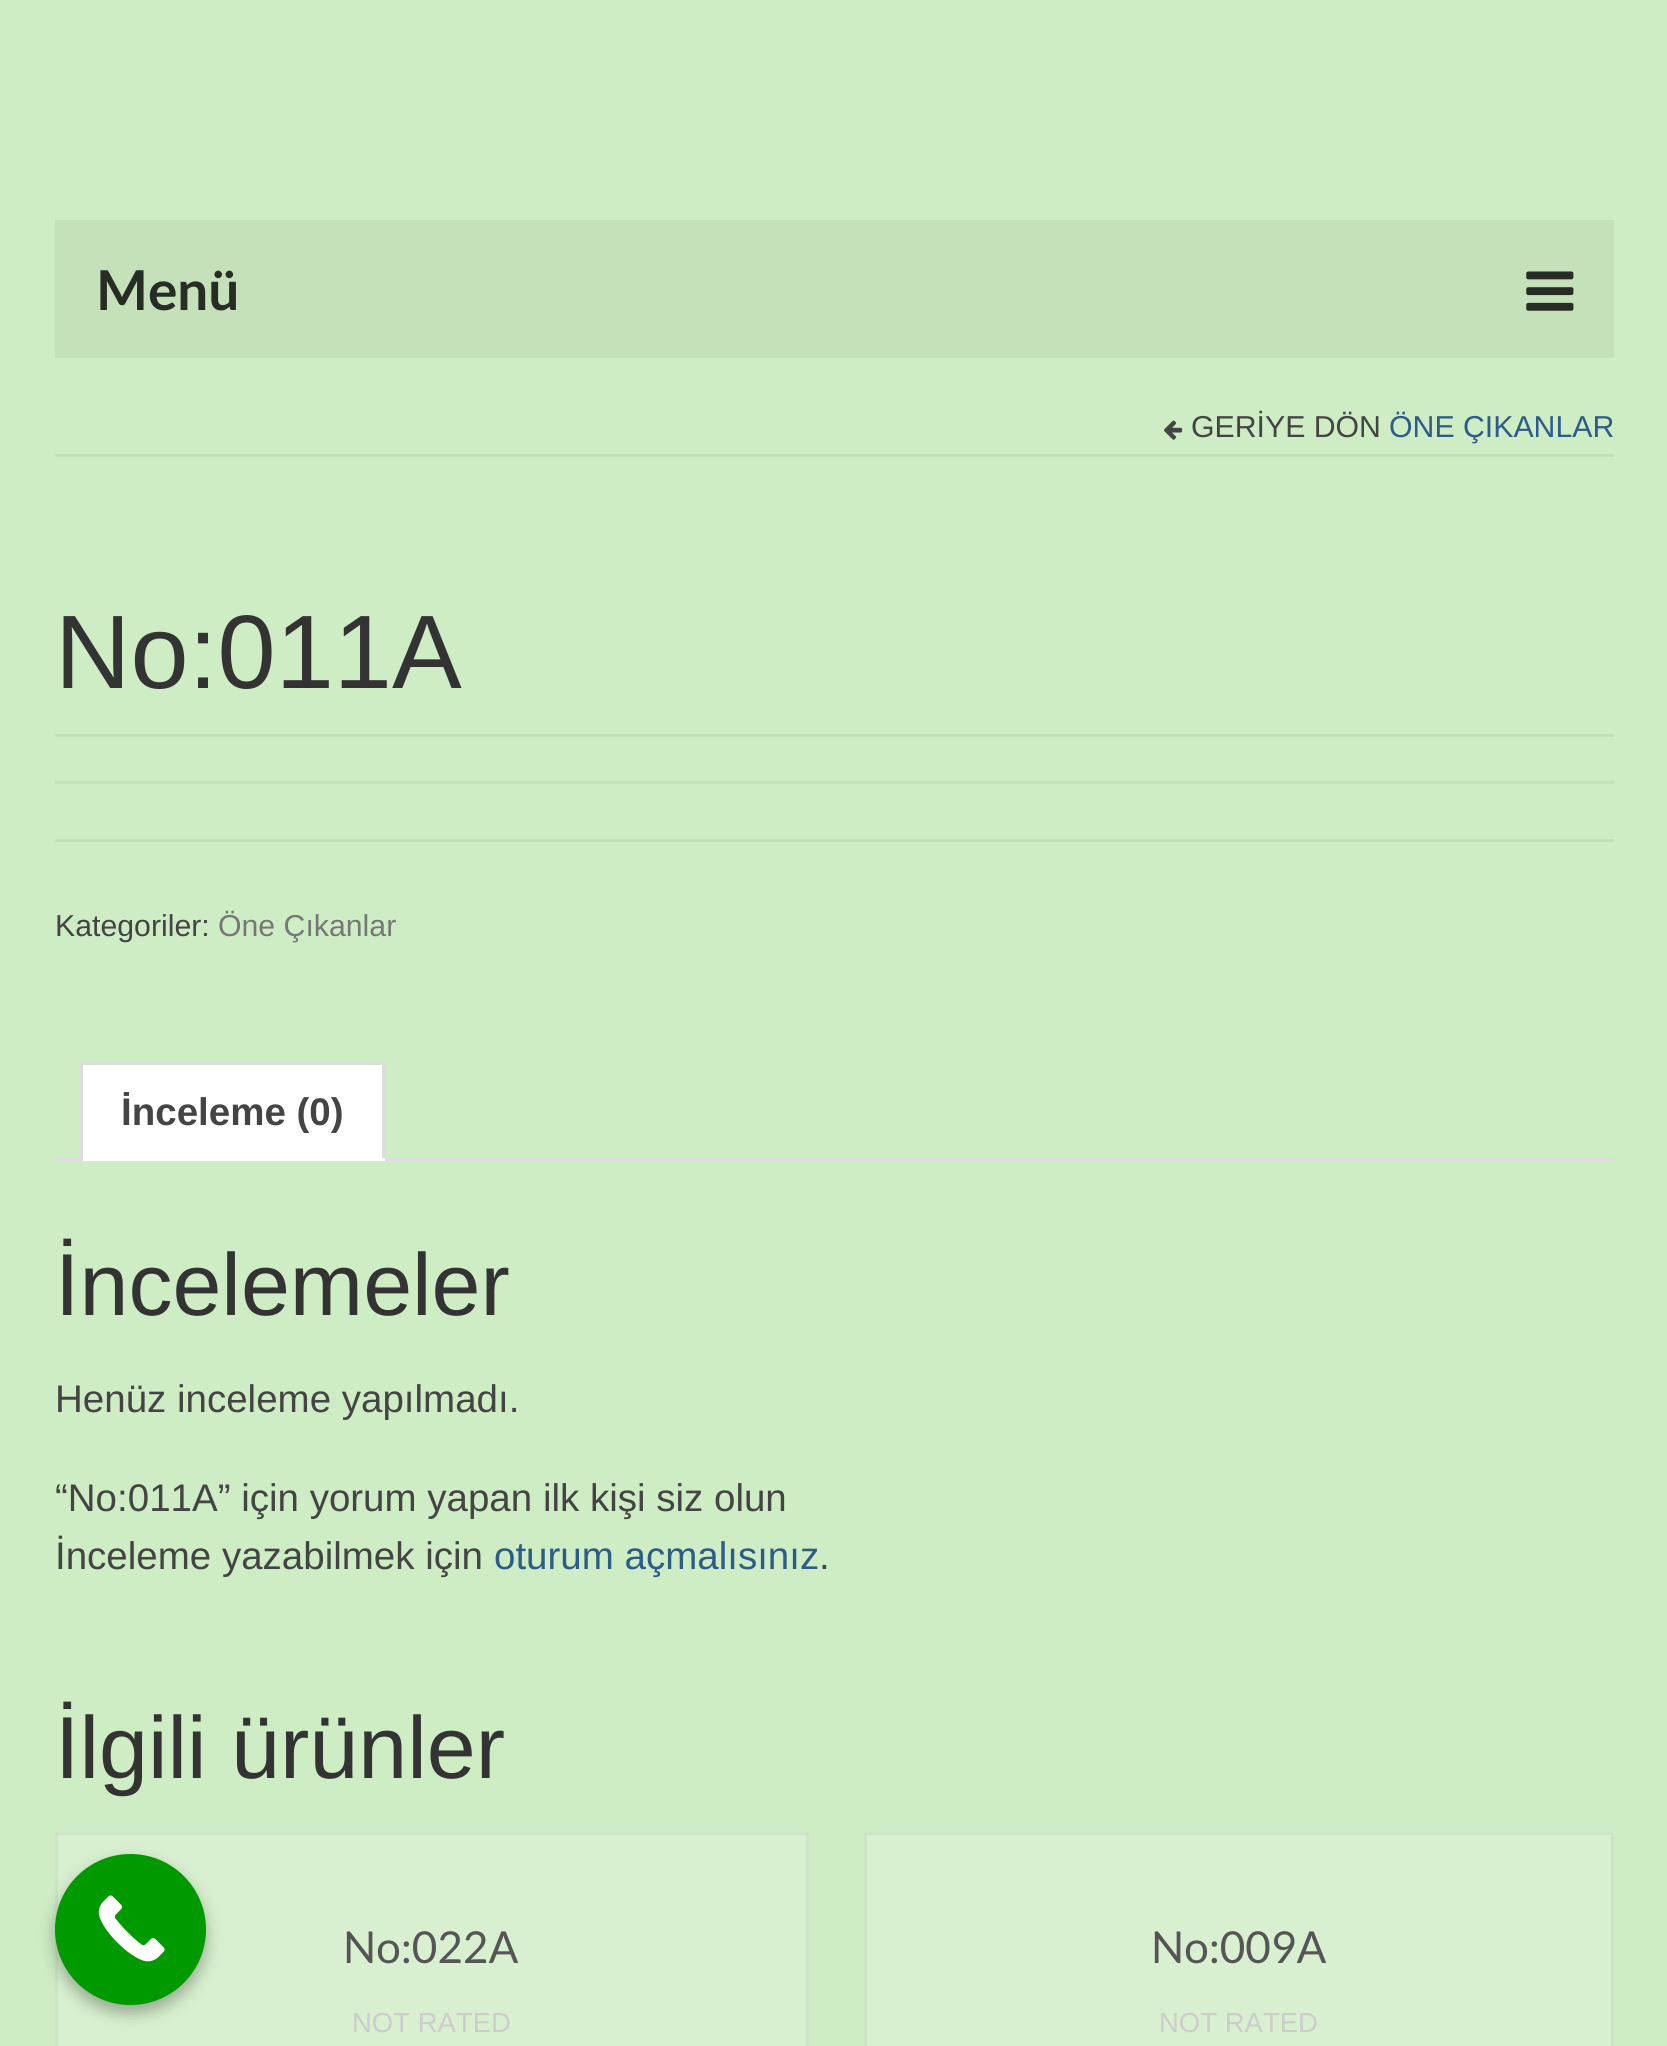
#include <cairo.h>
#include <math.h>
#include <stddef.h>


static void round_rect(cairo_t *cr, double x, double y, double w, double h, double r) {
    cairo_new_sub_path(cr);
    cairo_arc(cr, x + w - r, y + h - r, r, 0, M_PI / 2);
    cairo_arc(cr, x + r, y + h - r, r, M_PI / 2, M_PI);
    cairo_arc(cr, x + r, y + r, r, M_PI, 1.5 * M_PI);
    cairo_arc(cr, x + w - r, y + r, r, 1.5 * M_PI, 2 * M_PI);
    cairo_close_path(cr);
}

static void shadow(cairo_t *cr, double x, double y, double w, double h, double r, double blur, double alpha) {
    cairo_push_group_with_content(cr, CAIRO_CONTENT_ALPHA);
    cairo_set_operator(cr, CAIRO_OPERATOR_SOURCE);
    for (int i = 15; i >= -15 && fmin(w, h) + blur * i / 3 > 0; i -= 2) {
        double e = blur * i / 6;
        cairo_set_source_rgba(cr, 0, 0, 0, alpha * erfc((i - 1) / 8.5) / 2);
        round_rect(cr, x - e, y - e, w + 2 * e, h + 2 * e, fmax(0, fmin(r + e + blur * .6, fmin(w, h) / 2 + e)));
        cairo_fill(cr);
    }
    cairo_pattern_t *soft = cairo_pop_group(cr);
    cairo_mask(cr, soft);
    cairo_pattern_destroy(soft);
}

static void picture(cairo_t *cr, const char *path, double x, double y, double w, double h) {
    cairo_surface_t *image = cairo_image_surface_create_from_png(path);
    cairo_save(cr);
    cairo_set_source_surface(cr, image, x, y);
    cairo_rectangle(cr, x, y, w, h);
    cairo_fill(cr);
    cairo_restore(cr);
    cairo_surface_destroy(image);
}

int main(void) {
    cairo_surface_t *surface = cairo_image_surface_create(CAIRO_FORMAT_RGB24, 1667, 2046);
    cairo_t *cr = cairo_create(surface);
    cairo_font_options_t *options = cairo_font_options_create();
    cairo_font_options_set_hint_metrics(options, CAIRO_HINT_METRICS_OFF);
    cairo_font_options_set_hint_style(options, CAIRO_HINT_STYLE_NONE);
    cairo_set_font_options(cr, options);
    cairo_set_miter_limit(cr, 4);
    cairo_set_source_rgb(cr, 0.808, 0.929, 0.769);
    cairo_paint(cr);
    cairo_set_source_rgb(cr, 0.769, 0.882, 0.729);
    cairo_rectangle(cr, 55, 220, 1559, 138);
    cairo_fill(cr);
    cairo_select_font_face(cr, "Lato", CAIRO_FONT_SLANT_NORMAL, CAIRO_FONT_WEIGHT_BOLD);
    cairo_set_font_size(cr, 55);
    cairo_set_source_rgb(cr, 0.153, 0.176, 0.145);
    cairo_move_to(cr, 96, 310);
    cairo_show_text(cr, "Menü");
    picture(cr, "img1.png", 1526, 271, 48, 40);
    cairo_set_source_rgb(cr, 0.769, 0.882, 0.729);
    cairo_rectangle(cr, 55, 454, 1559, 3);
    cairo_fill(cr);
    picture(cr, "img2.png", 1164, 420, 19, 20);
    cairo_select_font_face(cr, "Liberation Sans", CAIRO_FONT_SLANT_NORMAL, CAIRO_FONT_WEIGHT_NORMAL);
    cairo_set_font_size(cr, 30.25);
    cairo_set_source_rgb(cr, 0.267, 0.267, 0.267);
    cairo_move_to(cr, 1191, 437);
    cairo_show_text(cr, "GERİYE DÖN");
    cairo_set_source_rgb(cr, 0.176, 0.361, 0.533);
    cairo_move_to(cr, 1389, 437);
    cairo_show_text(cr, "ÖNE ÇIKANLAR");
    cairo_set_font_size(cr, 104.5);
    cairo_set_source_rgb(cr, 0.2, 0.2, 0.2);
    cairo_move_to(cr, 55, 688);
    cairo_show_text(cr, "No:011A");
    cairo_set_source_rgb(cr, 0.769, 0.882, 0.729);
    cairo_rectangle(cr, 55, 734, 1559, 3);
    cairo_fill(cr);
    cairo_rectangle(cr, 55, 781, 1559, 3);
    cairo_fill(cr);
    cairo_rectangle(cr, 55, 839, 1559, 3);
    cairo_fill(cr);
    cairo_set_font_size(cr, 30.25);
    cairo_set_source_rgb(cr, 0.267, 0.267, 0.267);
    cairo_move_to(cr, 55, 936);
    cairo_show_text(cr, "Kategoriler:");
    cairo_set_source_rgb(cr, 0.467, 0.467, 0.467);
    cairo_move_to(cr, 218, 936);
    cairo_show_text(cr, "Öne Çıkanlar");
    cairo_set_source_rgb(cr, 1, 1, 1);
    cairo_rectangle(cr, 83, 1065, 299, 93);
    cairo_fill(cr);
    cairo_set_source_rgb(cr, 0.867, 0.867, 0.867);
    cairo_rectangle(cr, 80, 1062, 305, 3);
    cairo_fill(cr);
    cairo_set_source_rgb(cr, 0.875, 0.859, 0.875);
    cairo_rectangle(cr, 55, 1158, 1559, 3);
    cairo_fill(cr);
    cairo_set_source_rgb(cr, 0.867, 0.867, 0.867);
    cairo_rectangle(cr, 382, 1062, 3, 99);
    cairo_fill(cr);
    cairo_set_source_rgb(cr, 1, 1, 1);
    cairo_rectangle(cr, 80, 1158, 305, 3);
    cairo_fill(cr);
    cairo_set_source_rgb(cr, 0.867, 0.867, 0.867);
    cairo_rectangle(cr, 80, 1062, 3, 99);
    cairo_fill(cr);
    cairo_select_font_face(cr, "Liberation Sans", CAIRO_FONT_SLANT_NORMAL, CAIRO_FONT_WEIGHT_BOLD);
    cairo_set_font_size(cr, 38.5);
    cairo_set_source_rgb(cr, 0.267, 0.267, 0.267);
    cairo_move_to(cr, 121, 1125);
    cairo_show_text(cr, "İnceleme (0)");
    cairo_select_font_face(cr, "Liberation Sans", CAIRO_FONT_SLANT_NORMAL, CAIRO_FONT_WEIGHT_NORMAL);
    cairo_set_font_size(cr, 88);
    cairo_set_source_rgb(cr, 0.2, 0.2, 0.2);
    cairo_move_to(cr, 55, 1315);
    cairo_show_text(cr, "İncelemeler");
    cairo_set_font_size(cr, 38.5);
    cairo_set_source_rgb(cr, 0.267, 0.267, 0.267);
    cairo_move_to(cr, 55, 1412);
    cairo_show_text(cr, "Henüz inceleme yapılmadı.");
    cairo_move_to(cr, 55, 1511);
    cairo_show_text(cr, "“No:011A” için yorum yapan ilk kişi siz olun");
    cairo_move_to(cr, 55, 1569);
    cairo_show_text(cr, "İnceleme yazabilmek için");
    cairo_set_source_rgb(cr, 0.176, 0.361, 0.533);
    cairo_move_to(cr, 494, 1569);
    cairo_show_text(cr, "oturum açmalısınız");
    cairo_set_source_rgb(cr, 0.267, 0.267, 0.267);
    cairo_move_to(cr, 819, 1569);
    cairo_show_text(cr, ".");
    cairo_set_font_size(cr, 88);
    cairo_set_source_rgb(cr, 0.2, 0.2, 0.2);
    cairo_move_to(cr, 55, 1778);
    cairo_show_text(cr, "İlgili ürünler");
    cairo_set_source_rgb(cr, 0.847, 0.941, 0.816);
    cairo_rectangle(cr, 56.5, 1833.5, 751, 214);
    cairo_fill_preserve(cr);
    cairo_set_source_rgb(cr, 0.804, 0.894, 0.776);
    cairo_set_line_width(cr, 3);
    cairo_stroke(cr);
    cairo_select_font_face(cr, "Lato", CAIRO_FONT_SLANT_NORMAL, CAIRO_FONT_WEIGHT_NORMAL);
    cairo_set_font_size(cr, 44);
    cairo_set_source_rgb(cr, 0.333, 0.333, 0.333);
    cairo_move_to(cr, 343, 1963);
    cairo_show_text(cr, "No:022A");
    cairo_select_font_face(cr, "Liberation Sans", CAIRO_FONT_SLANT_NORMAL, CAIRO_FONT_WEIGHT_NORMAL);
    cairo_set_font_size(cr, 27.5);
    cairo_set_source_rgb(cr, 0.8, 0.8, 0.8);
    cairo_move_to(cr, 352, 2032);
    cairo_show_text(cr, "NOT RATED");
    cairo_set_source_rgb(cr, 0.847, 0.941, 0.816);
    cairo_rectangle(cr, 865.5, 1833.5, 747, 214);
    cairo_fill_preserve(cr);
    cairo_set_source_rgb(cr, 0.804, 0.894, 0.776);
    cairo_stroke(cr);
    cairo_select_font_face(cr, "Lato", CAIRO_FONT_SLANT_NORMAL, CAIRO_FONT_WEIGHT_NORMAL);
    cairo_set_font_size(cr, 44);
    cairo_set_source_rgb(cr, 0.333, 0.333, 0.333);
    cairo_move_to(cr, 1151, 1963);
    cairo_show_text(cr, "No:009A");
    cairo_select_font_face(cr, "Liberation Sans", CAIRO_FONT_SLANT_NORMAL, CAIRO_FONT_WEIGHT_NORMAL);
    cairo_set_font_size(cr, 27.5);
    cairo_set_source_rgb(cr, 0.8, 0.8, 0.8);
    cairo_move_to(cr, 1159, 2032);
    cairo_show_text(cr, "NOT RATED");
    cairo_set_source_rgb(cr, 0, 0, 0);
    shadow(cr, 55, 1862, 151, 151, 75.5, 8, 0.3);
    cairo_set_source_rgb(cr, 0, 0.6, 0);
    cairo_arc(cr, 130.5, 1929.5, 75.5, 0, 2 * M_PI);
    cairo_fill(cr);
    picture(cr, "img3.png", 98, 1895, 67, 67);
    cairo_surface_write_to_png(surface, "page.png");
    cairo_font_options_destroy(options);
    cairo_destroy(cr);
    cairo_surface_destroy(surface);
    return 0;
}
